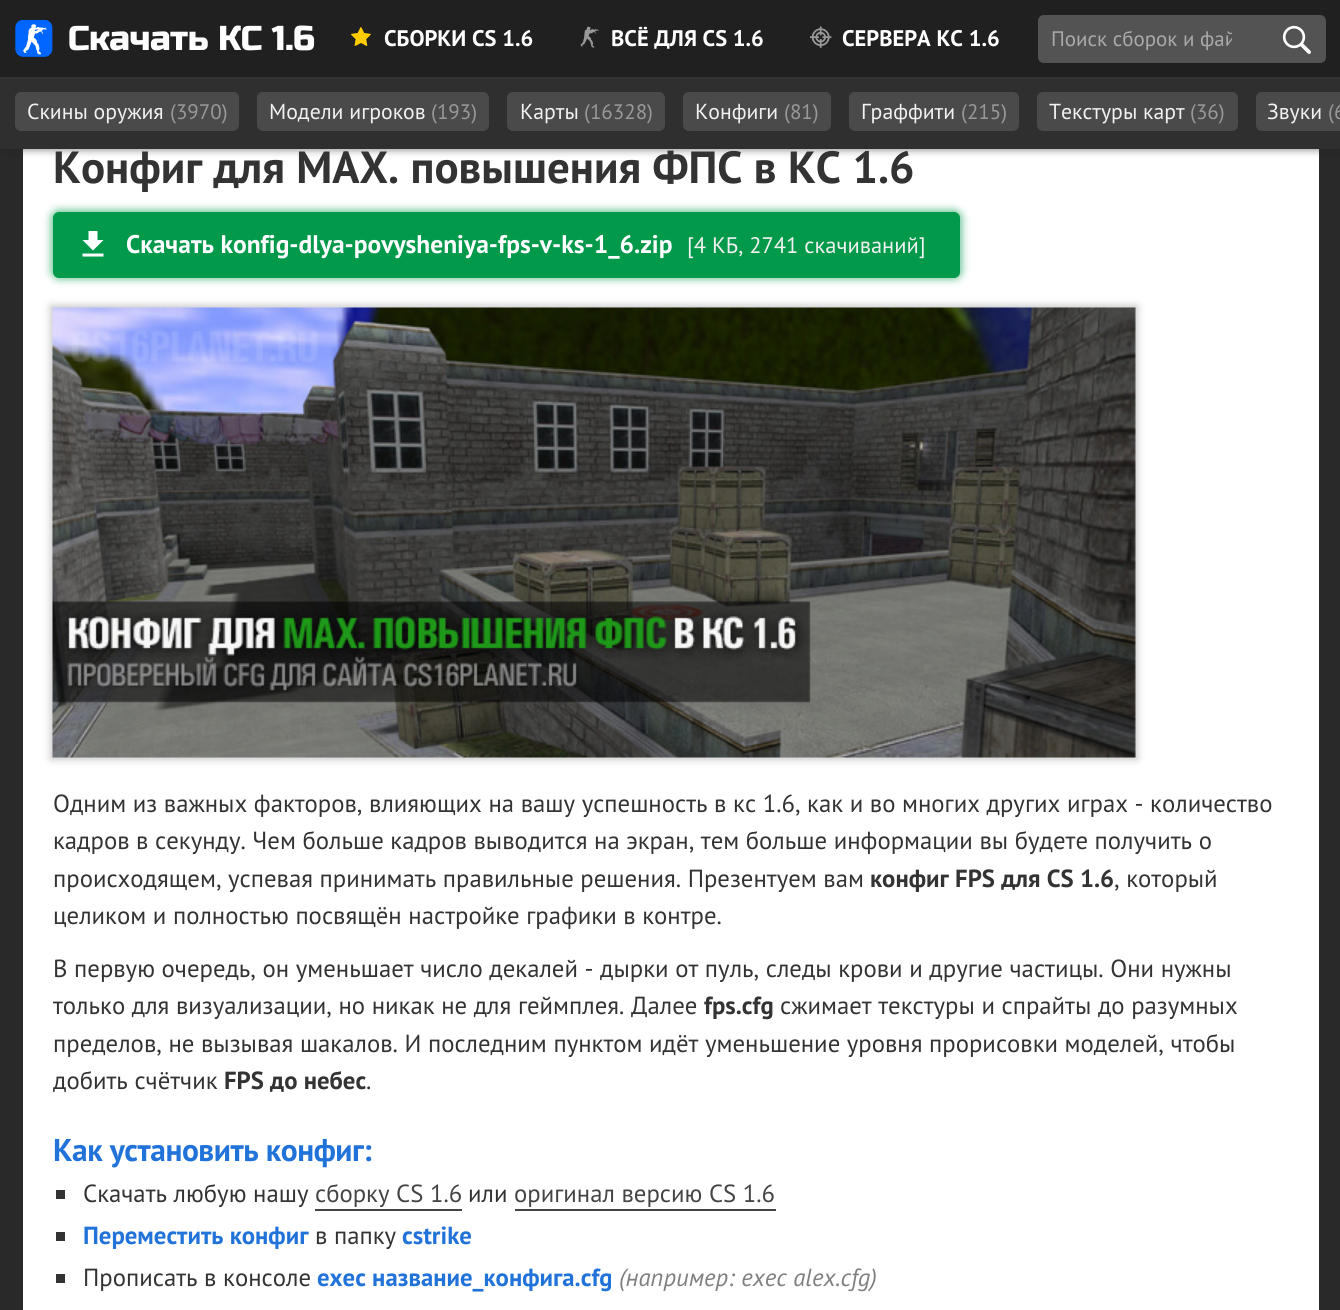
#include <cairo.h>
#include <math.h>
#include <stddef.h>


static void spaced_text(cairo_t *cr, double x, double y, const char *s, double letter, double word) {
    cairo_move_to(cr, x, y);
    while (*s) {
        char ch[5] = {0};
        int n = 0;
        do ch[n++] = *s++; while ((*s & 0xC0) == 0x80);
        cairo_show_text(cr, ch);
        cairo_rel_move_to(cr, letter + word * (*ch == ' '), 0);
    }
}

static void round_rect(cairo_t *cr, double x, double y, double w, double h, double r) {
    cairo_new_sub_path(cr);
    cairo_arc(cr, x + w - r, y + h - r, r, 0, M_PI / 2);
    cairo_arc(cr, x + r, y + h - r, r, M_PI / 2, M_PI);
    cairo_arc(cr, x + r, y + r, r, M_PI, 1.5 * M_PI);
    cairo_arc(cr, x + w - r, y + r, r, 1.5 * M_PI, 2 * M_PI);
    cairo_close_path(cr);
}

static void shadow(cairo_t *cr, double x, double y, double w, double h, double r, double blur, double alpha) {
    cairo_push_group_with_content(cr, CAIRO_CONTENT_ALPHA);
    cairo_set_operator(cr, CAIRO_OPERATOR_SOURCE);
    for (int i = 15; i >= -15 && fmin(w, h) + blur * i / 3 > 0; i -= 2) {
        double e = blur * i / 6;
        cairo_set_source_rgba(cr, 0, 0, 0, alpha * erfc((i - 1) / 8.5) / 2);
        round_rect(cr, x - e, y - e, w + 2 * e, h + 2 * e, fmax(0, fmin(r + e + blur * .6, fmin(w, h) / 2 + e)));
        cairo_fill(cr);
    }
    cairo_pattern_t *soft = cairo_pop_group(cr);
    cairo_mask(cr, soft);
    cairo_pattern_destroy(soft);
}

static void picture(cairo_t *cr, const char *path, double x, double y, double w, double h) {
    cairo_surface_t *image = cairo_image_surface_create_from_png(path);
    cairo_save(cr);
    cairo_set_source_surface(cr, image, x, y);
    cairo_rectangle(cr, x, y, w, h);
    cairo_fill(cr);
    cairo_restore(cr);
    cairo_surface_destroy(image);
}

int main(void) {
    cairo_surface_t *surface = cairo_image_surface_create(CAIRO_FORMAT_RGB24, 1340, 1310);
    cairo_t *cr = cairo_create(surface);
    cairo_font_options_t *options = cairo_font_options_create();
    cairo_font_options_set_hint_metrics(options, CAIRO_HINT_METRICS_OFF);
    cairo_font_options_set_hint_style(options, CAIRO_HINT_STYLE_NONE);
    cairo_set_font_options(cr, options);
    cairo_set_miter_limit(cr, 4);
    cairo_set_source_rgb(cr, 0.161, 0.161, 0.161);
    cairo_paint(cr);
    cairo_set_source_rgb(cr, 1, 1, 1);
    cairo_rectangle(cr, 23, 149, 1296, 1161);
    cairo_fill(cr);
    cairo_set_source_rgb(cr, 0.125, 0.125, 0.125);
    shadow(cr, 0, 80, 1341, 70, 0, 4, 0.5);
    cairo_set_source_rgb(cr, 0.125, 0.125, 0.125);
    cairo_rectangle(cr, 0, 0, 1340, 77);
    cairo_fill(cr);
    cairo_set_source_rgb(cr, 0.204, 0.204, 0.204);
    cairo_rectangle(cr, 0, 77, 1340, 2);
    cairo_fill(cr);
    picture(cr, "img1.png", 15, 20, 38, 37);
    cairo_select_font_face(cr, "Russo One", CAIRO_FONT_SLANT_NORMAL, CAIRO_FONT_WEIGHT_NORMAL);
    cairo_set_font_size(cr, 34.5);
    cairo_set_source_rgb(cr, 1, 1, 1);
    spaced_text(cr, 68, 50, "Скачать КС 1.6", -0.45, 0);
    picture(cr, "img2.png", 351, 27, 20, 19);
    cairo_select_font_face(cr, "PT Sans", CAIRO_FONT_SLANT_NORMAL, CAIRO_FONT_WEIGHT_BOLD);
    cairo_set_font_size(cr, 22.5);
    cairo_move_to(cr, 384, 46);
    cairo_show_text(cr, "СБОРКИ CS 1.6");
    picture(cr, "img3.png", 580, 26, 19, 22);
    cairo_move_to(cr, 611, 46);
    cairo_show_text(cr, "ВСЁ ДЛЯ CS 1.6");
    picture(cr, "img4.png", 810, 26, 22, 22);
    cairo_move_to(cr, 842, 46);
    cairo_show_text(cr, "СЕРВЕРА КС 1.6");
    cairo_set_source_rgb(cr, 0.325, 0.325, 0.325);
    cairo_new_path(cr);
    cairo_move_to(cr, 1044, 15);
    cairo_line_to(cr, 1266, 15);
    cairo_line_to(cr, 1266, 63);
    cairo_line_to(cr, 1044, 63);
    cairo_curve_to(cr, 1040.5, 63, 1038, 60.5, 1038, 57);
    cairo_line_to(cr, 1038, 21);
    cairo_curve_to(cr, 1038, 17.5, 1040.5, 15, 1044, 15);
    cairo_close_path(cr);
    cairo_fill(cr);
    cairo_save(cr);
    cairo_rectangle(cr, 1052, 26, 180, 27);
    cairo_clip(cr);
    cairo_select_font_face(cr, "PT Sans", CAIRO_FONT_SLANT_NORMAL, CAIRO_FONT_WEIGHT_NORMAL);
    cairo_set_font_size(cr, 21);
    cairo_set_source_rgb(cr, 0.667, 0.667, 0.667);
    cairo_move_to(cr, 1051, 46);
    cairo_show_text(cr, "Поиск сборок и фай");
    cairo_restore(cr);
    cairo_new_path(cr);
    cairo_move_to(cr, 1266, 15);
    cairo_line_to(cr, 1320, 15);
    cairo_curve_to(cr, 1323.5, 15, 1326, 17.5, 1326, 21);
    cairo_line_to(cr, 1326, 57);
    cairo_curve_to(cr, 1326, 60.5, 1323.5, 63, 1320, 63);
    cairo_line_to(cr, 1266, 63);
    cairo_close_path(cr);
    cairo_fill(cr);
    picture(cr, "img5.png", 1282, 25, 29, 29);
    cairo_set_source_rgb(cr, 0.184, 0.184, 0.184);
    cairo_rectangle(cr, 0, 79, 1340, 70);
    cairo_fill(cr);
    cairo_set_source_rgb(cr, 0.29, 0.29, 0.29);
    round_rect(cr, 15, 92, 224, 39, 6);
    cairo_fill(cr);
    cairo_select_font_face(cr, "PT Sans", CAIRO_FONT_SLANT_NORMAL, CAIRO_FONT_WEIGHT_NORMAL);
    cairo_set_font_size(cr, 21.75);
    cairo_set_source_rgb(cr, 0.945, 0.945, 0.945);
    cairo_move_to(cr, 27, 119);
    cairo_show_text(cr, "Скины оружия");
    cairo_set_font_size(cr, 21);
    cairo_set_source_rgb(cr, 0.6, 0.6, 0.6);
    cairo_move_to(cr, 170, 119);
    cairo_show_text(cr, "(3970)");
    cairo_set_source_rgb(cr, 0.29, 0.29, 0.29);
    round_rect(cr, 257, 92, 232, 39, 6);
    cairo_fill(cr);
    cairo_set_font_size(cr, 21.75);
    cairo_set_source_rgb(cr, 0.945, 0.945, 0.945);
    cairo_move_to(cr, 269, 119);
    cairo_show_text(cr, "Модели игроков");
    cairo_set_font_size(cr, 21);
    cairo_set_source_rgb(cr, 0.6, 0.6, 0.6);
    cairo_move_to(cr, 431, 119);
    cairo_show_text(cr, "(193)");
    cairo_set_source_rgb(cr, 0.29, 0.29, 0.29);
    round_rect(cr, 507, 92, 158, 39, 6);
    cairo_fill(cr);
    cairo_set_font_size(cr, 21.75);
    cairo_set_source_rgb(cr, 0.945, 0.945, 0.945);
    cairo_move_to(cr, 520, 119);
    cairo_show_text(cr, "Карты");
    cairo_set_font_size(cr, 21);
    cairo_set_source_rgb(cr, 0.6, 0.6, 0.6);
    cairo_move_to(cr, 584, 119);
    cairo_show_text(cr, "(16328)");
    cairo_set_source_rgb(cr, 0.29, 0.29, 0.29);
    round_rect(cr, 683, 92, 148, 39, 6);
    cairo_fill(cr);
    cairo_set_font_size(cr, 21.75);
    cairo_set_source_rgb(cr, 0.945, 0.945, 0.945);
    cairo_move_to(cr, 695, 119);
    cairo_show_text(cr, "Конфиги");
    cairo_set_font_size(cr, 21);
    cairo_set_source_rgb(cr, 0.6, 0.6, 0.6);
    cairo_move_to(cr, 784, 119);
    cairo_show_text(cr, "(81)");
    cairo_set_source_rgb(cr, 0.29, 0.29, 0.29);
    round_rect(cr, 849, 92, 170, 39, 6);
    cairo_fill(cr);
    cairo_set_font_size(cr, 21.75);
    cairo_set_source_rgb(cr, 0.945, 0.945, 0.945);
    cairo_move_to(cr, 861, 119);
    cairo_show_text(cr, "Граффити");
    cairo_set_font_size(cr, 21);
    cairo_set_source_rgb(cr, 0.6, 0.6, 0.6);
    cairo_move_to(cr, 961, 119);
    cairo_show_text(cr, "(215)");
    cairo_set_source_rgb(cr, 0.29, 0.29, 0.29);
    round_rect(cr, 1037, 92, 201, 39, 6);
    cairo_fill(cr);
    cairo_set_font_size(cr, 21.75);
    cairo_set_source_rgb(cr, 0.945, 0.945, 0.945);
    cairo_move_to(cr, 1049, 119);
    cairo_show_text(cr, "Текстуры карт");
    cairo_set_font_size(cr, 21);
    cairo_set_source_rgb(cr, 0.6, 0.6, 0.6);
    cairo_move_to(cr, 1190, 119);
    cairo_show_text(cr, "(36)");
    cairo_set_source_rgb(cr, 0.29, 0.29, 0.29);
    cairo_new_path(cr);
    cairo_move_to(cr, 1262, 92);
    cairo_line_to(cr, 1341, 92);
    cairo_line_to(cr, 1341, 131);
    cairo_line_to(cr, 1262, 131);
    cairo_curve_to(cr, 1258.5, 131, 1256, 128.5, 1256, 125);
    cairo_line_to(cr, 1256, 98);
    cairo_curve_to(cr, 1256, 94.5, 1258.5, 92, 1262, 92);
    cairo_close_path(cr);
    cairo_fill(cr);
    cairo_set_font_size(cr, 21.75);
    cairo_set_source_rgb(cr, 0.945, 0.945, 0.945);
    cairo_move_to(cr, 1267, 119);
    cairo_show_text(cr, "Звуки");
    cairo_set_font_size(cr, 21);
    cairo_set_source_rgb(cr, 0.6, 0.6, 0.6);
    cairo_move_to(cr, 1328, 119);
    cairo_show_text(cr, "(6");
    cairo_select_font_face(cr, "PT Sans", CAIRO_FONT_SLANT_NORMAL, CAIRO_FONT_WEIGHT_BOLD);
    cairo_set_font_size(cr, 45);
    cairo_set_source_rgb(cr, 0.2, 0.2, 0.2);
    cairo_move_to(cr, 53, 183);
    cairo_show_text(cr, "Конфиг для MAX. повышения ФПС в КС 1.6");
    cairo_set_source_rgb(cr, 0.008, 0.6, 0.294);
    shadow(cr, 51, 210, 911, 69, 8, 4, 0.6);
    cairo_set_source_rgb(cr, 0.008, 0.6, 0.294);
    round_rect(cr, 53, 212, 907, 66, 6);
    cairo_fill(cr);
    picture(cr, "img6.png", 82, 231, 22, 26);
    cairo_set_font_size(cr, 25.5);
    cairo_set_source_rgb(cr, 1, 1, 1);
    cairo_move_to(cr, 126, 253);
    cairo_show_text(cr, "Скачать konfig-dlya-povysheniya-fps-v-ks-1_6.zip");
    cairo_select_font_face(cr, "PT Sans", CAIRO_FONT_SLANT_NORMAL, CAIRO_FONT_WEIGHT_NORMAL);
    cairo_set_font_size(cr, 22.5);
    cairo_set_source_rgb(cr, 0.945, 0.945, 0.945);
    cairo_move_to(cr, 687, 253);
    cairo_show_text(cr, "[4 КБ, 2741 скачиваний]");
    cairo_set_source_rgb(cr, 0, 0, 0);
    shadow(cr, 51, 306, 1086, 453, 0, 4, 0.25);
    picture(cr, "img7.png", 52, 307, 1084, 451);
    cairo_set_font_size(cr, 24.75);
    cairo_set_source_rgb(cr, 0.2, 0.2, 0.2);
    cairo_move_to(cr, 53, 812);
    cairo_show_text(cr, "Одним из важных факторов, влияющих на вашу успешность в кс 1.6, как и во многих других играх - количество");
    cairo_move_to(cr, 53, 849);
    cairo_show_text(cr, "кадров в секунду. Чем больше кадров выводится на экран, тем больше информации вы будете получить о");
    cairo_move_to(cr, 53, 887);
    cairo_show_text(cr, "происходящем, успевая принимать правильные решения. Презентуем вам");
    cairo_select_font_face(cr, "PT Sans", CAIRO_FONT_SLANT_NORMAL, CAIRO_FONT_WEIGHT_BOLD);
    cairo_move_to(cr, 870, 887);
    cairo_show_text(cr, "конфиг FPS для CS 1.6");
    cairo_select_font_face(cr, "PT Sans", CAIRO_FONT_SLANT_NORMAL, CAIRO_FONT_WEIGHT_NORMAL);
    cairo_move_to(cr, 1114, 887);
    cairo_show_text(cr, ", который");
    cairo_move_to(cr, 53, 924);
    cairo_show_text(cr, "целиком и полностью посвящён настройке графики в контре.");
    cairo_move_to(cr, 53, 977);
    cairo_show_text(cr, "В первую очередь, он уменьшает число декалей - дырки от пуль, следы крови и другие частицы. Они нужны");
    cairo_move_to(cr, 53, 1014);
    cairo_show_text(cr, "только для визуализации, но никак не для геймплея. Далее");
    cairo_select_font_face(cr, "PT Sans", CAIRO_FONT_SLANT_NORMAL, CAIRO_FONT_WEIGHT_BOLD);
    cairo_move_to(cr, 704, 1014);
    cairo_show_text(cr, "fps.cfg");
    cairo_select_font_face(cr, "PT Sans", CAIRO_FONT_SLANT_NORMAL, CAIRO_FONT_WEIGHT_NORMAL);
    cairo_move_to(cr, 780, 1014);
    cairo_show_text(cr, "сжимает текстуры и спрайты до разумных");
    cairo_move_to(cr, 53, 1052);
    cairo_show_text(cr, "пределов, не вызывая шакалов. И последним пунктом идёт уменьшение уровня прорисовки моделей, чтобы");
    cairo_move_to(cr, 53, 1089);
    cairo_show_text(cr, "добить счётчик");
    cairo_select_font_face(cr, "PT Sans", CAIRO_FONT_SLANT_NORMAL, CAIRO_FONT_WEIGHT_BOLD);
    cairo_move_to(cr, 224, 1089);
    cairo_show_text(cr, "FPS до небес");
    cairo_select_font_face(cr, "PT Sans", CAIRO_FONT_SLANT_NORMAL, CAIRO_FONT_WEIGHT_NORMAL);
    cairo_move_to(cr, 366, 1089);
    cairo_show_text(cr, ".");
    cairo_select_font_face(cr, "PT Sans", CAIRO_FONT_SLANT_NORMAL, CAIRO_FONT_WEIGHT_BOLD);
    cairo_set_font_size(cr, 31.5);
    cairo_set_source_rgb(cr, 0.129, 0.451, 0.851);
    spaced_text(cr, 53, 1161, "Как установить конфиг:", -0.45, 0);
    cairo_set_source_rgb(cr, 0.2, 0.2, 0.2);
    cairo_rectangle(cr, 56, 1190, 9, 9);
    cairo_fill(cr);
    cairo_select_font_face(cr, "PT Sans", CAIRO_FONT_SLANT_NORMAL, CAIRO_FONT_WEIGHT_NORMAL);
    cairo_set_font_size(cr, 24.75);
    cairo_move_to(cr, 83, 1202);
    cairo_show_text(cr, "Скачать любую нашу");
    cairo_set_source_rgb(cr, 0.267, 0.267, 0.267);
    cairo_move_to(cr, 315, 1202);
    cairo_show_text(cr, "сборку CS 1.6");
    cairo_rectangle(cr, 315, 1209, 147, 2);
    cairo_fill(cr);
    cairo_set_source_rgb(cr, 0.2, 0.2, 0.2);
    cairo_move_to(cr, 468, 1202);
    cairo_show_text(cr, "или");
    cairo_set_source_rgb(cr, 0.267, 0.267, 0.267);
    cairo_move_to(cr, 514, 1202);
    cairo_show_text(cr, "оригинал версию CS 1.6");
    cairo_rectangle(cr, 515, 1209, 261, 2);
    cairo_fill(cr);
    cairo_set_source_rgb(cr, 0.2, 0.2, 0.2);
    cairo_rectangle(cr, 56, 1232, 9, 9);
    cairo_fill(cr);
    cairo_select_font_face(cr, "PT Sans", CAIRO_FONT_SLANT_NORMAL, CAIRO_FONT_WEIGHT_BOLD);
    cairo_set_source_rgb(cr, 0.129, 0.451, 0.851);
    cairo_move_to(cr, 83, 1244);
    cairo_show_text(cr, "Переместить конфиг");
    cairo_select_font_face(cr, "PT Sans", CAIRO_FONT_SLANT_NORMAL, CAIRO_FONT_WEIGHT_NORMAL);
    cairo_set_source_rgb(cr, 0.2, 0.2, 0.2);
    cairo_move_to(cr, 315, 1244);
    cairo_show_text(cr, "в папку");
    cairo_select_font_face(cr, "PT Sans", CAIRO_FONT_SLANT_NORMAL, CAIRO_FONT_WEIGHT_BOLD);
    cairo_set_source_rgb(cr, 0.129, 0.451, 0.851);
    cairo_move_to(cr, 402, 1244);
    cairo_show_text(cr, "cstrike");
    cairo_set_source_rgb(cr, 0.2, 0.2, 0.2);
    cairo_rectangle(cr, 56, 1274, 9, 9);
    cairo_fill(cr);
    cairo_select_font_face(cr, "PT Sans", CAIRO_FONT_SLANT_NORMAL, CAIRO_FONT_WEIGHT_NORMAL);
    cairo_move_to(cr, 83, 1286);
    cairo_show_text(cr, "Прописать в консоле");
    cairo_select_font_face(cr, "PT Sans", CAIRO_FONT_SLANT_NORMAL, CAIRO_FONT_WEIGHT_BOLD);
    cairo_set_source_rgb(cr, 0.129, 0.451, 0.851);
    cairo_move_to(cr, 317, 1286);
    cairo_show_text(cr, "exec название_конфига.cfg");
    cairo_select_font_face(cr, "PT Sans", CAIRO_FONT_SLANT_ITALIC, CAIRO_FONT_WEIGHT_NORMAL);
    cairo_set_source_rgb(cr, 0.502, 0.502, 0.502);
    cairo_move_to(cr, 619, 1286);
    cairo_show_text(cr, "(например: exec alex.cfg)");
    cairo_surface_write_to_png(surface, "page.png");
    cairo_font_options_destroy(options);
    cairo_destroy(cr);
    cairo_surface_destroy(surface);
    return 0;
}
